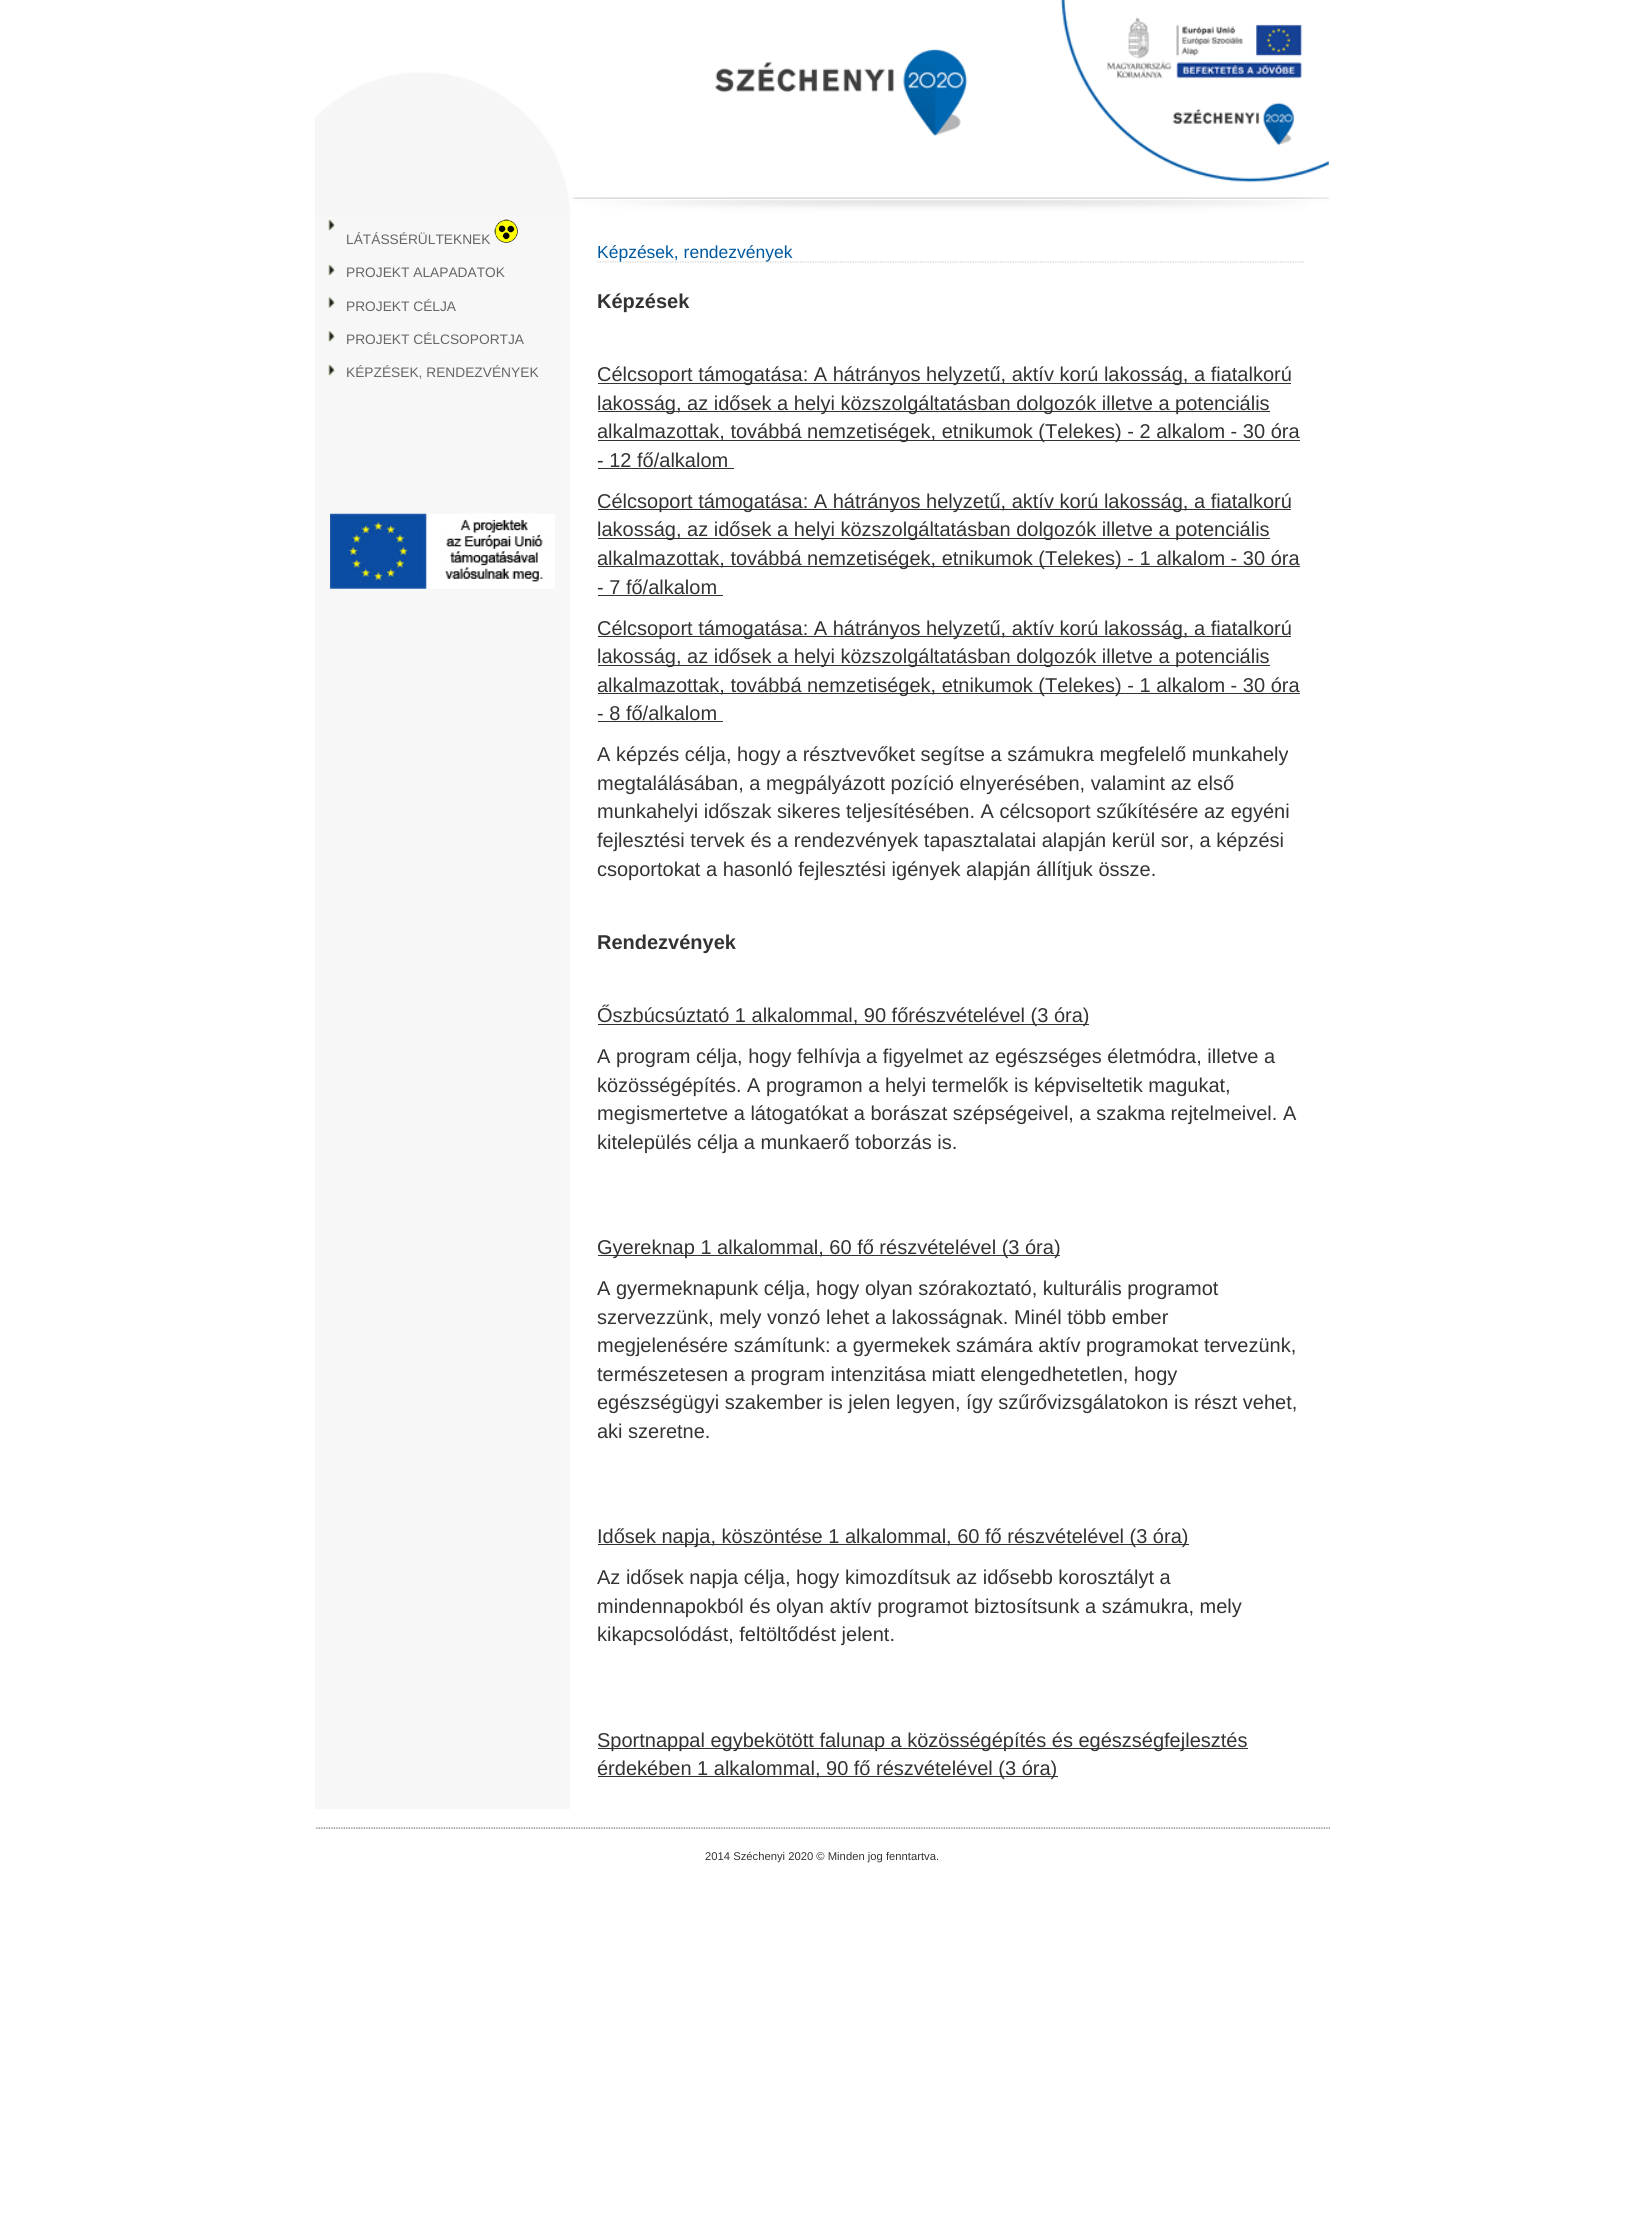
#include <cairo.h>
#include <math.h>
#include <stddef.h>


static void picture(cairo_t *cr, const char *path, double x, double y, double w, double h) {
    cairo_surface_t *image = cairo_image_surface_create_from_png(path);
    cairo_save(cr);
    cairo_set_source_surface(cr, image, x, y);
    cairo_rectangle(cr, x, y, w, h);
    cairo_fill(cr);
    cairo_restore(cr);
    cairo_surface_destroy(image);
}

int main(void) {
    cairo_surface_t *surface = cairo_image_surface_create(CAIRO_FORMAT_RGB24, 1643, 2221);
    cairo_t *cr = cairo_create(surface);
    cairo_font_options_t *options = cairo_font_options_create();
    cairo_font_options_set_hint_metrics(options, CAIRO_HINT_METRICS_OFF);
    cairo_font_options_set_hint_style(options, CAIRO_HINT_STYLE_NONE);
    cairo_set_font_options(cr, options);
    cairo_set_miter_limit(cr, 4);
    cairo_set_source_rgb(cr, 1, 1, 1);
    cairo_paint(cr);
    picture(cr, "img1.png", 315, 0, 1014, 218);
    cairo_set_source_rgb(cr, 0.965, 0.965, 0.965);
    cairo_rectangle(cr, 315, 218, 255, 1591);
    cairo_fill(cr);
    picture(cr, "img2.png", 328, 219, 7, 12);
    cairo_select_font_face(cr, "Liberation Sans", CAIRO_FONT_SLANT_NORMAL, CAIRO_FONT_WEIGHT_NORMAL);
    cairo_set_font_size(cr, 13.75);
    cairo_set_source_rgb(cr, 0.4, 0.4, 0.4);
    cairo_move_to(cr, 346, 244);
    cairo_show_text(cr, "LÁTÁSSÉRÜLTEKNEK");
    picture(cr, "img3.png", 494, 219, 24, 24);
    picture(cr, "img2.png", 328, 264, 7, 12);
    cairo_move_to(cr, 346, 277);
    cairo_show_text(cr, "PROJEKT ALAPADATOK");
    picture(cr, "img4.png", 328, 297, 7, 11);
    cairo_move_to(cr, 346, 311);
    cairo_show_text(cr, "PROJEKT CÉLJA");
    picture(cr, "img5.png", 328, 331, 7, 11);
    cairo_move_to(cr, 346, 344);
    cairo_show_text(cr, "PROJEKT CÉLCSOPORTJA");
    picture(cr, "img2.png", 328, 364, 7, 12);
    cairo_move_to(cr, 346, 377);
    cairo_show_text(cr, "KÉPZÉSEK, RENDEZVÉNYEK");
    picture(cr, "img6.png", 330, 513, 225, 76);
    cairo_new_path(cr);
    cairo_move_to(cr, 597.5, 262);
    cairo_line_to(cr, 1305, 262);
    cairo_set_source_rgb(cr, 0.82, 0.82, 0.82);
    cairo_set_line_width(cr, 1.2);
    cairo_set_dash(cr, (double[]){1.25, 1.25}, 2, 0);
    cairo_stroke(cr);
    cairo_set_font_size(cr, 17.5);
    cairo_set_source_rgb(cr, 0, 0.349, 0.624);
    cairo_move_to(cr, 597, 258);
    cairo_show_text(cr, "Képzések, rendezvények");
    cairo_select_font_face(cr, "Liberation Sans", CAIRO_FONT_SLANT_NORMAL, CAIRO_FONT_WEIGHT_BOLD);
    cairo_set_font_size(cr, 20);
    cairo_set_source_rgb(cr, 0.2, 0.2, 0.2);
    cairo_move_to(cr, 597, 308);
    cairo_show_text(cr, "Képzések");
    cairo_rectangle(cr, 598, 383, 693, 1);
    cairo_fill(cr);
    cairo_select_font_face(cr, "Liberation Sans", CAIRO_FONT_SLANT_NORMAL, CAIRO_FONT_WEIGHT_NORMAL);
    cairo_move_to(cr, 597, 381);
    cairo_show_text(cr, "Célcsoport támogatása: A hátrányos helyzetű, aktív korú lakosság, a fiatalkorú");
    cairo_rectangle(cr, 598, 411, 672, 1);
    cairo_fill(cr);
    cairo_move_to(cr, 597, 410);
    cairo_show_text(cr, "lakosság, az idősek a helyi közszolgáltatásban dolgozók illetve a potenciális");
    cairo_rectangle(cr, 598, 440, 702, 1);
    cairo_fill(cr);
    cairo_move_to(cr, 597, 438);
    cairo_show_text(cr, "alkalmazottak, továbbá nemzetiségek, etnikumok (Telekes) - 2 alkalom - 30 óra");
    cairo_move_to(cr, 597, 467);
    cairo_show_text(cr, "- 12 fő/alkalom");
    cairo_rectangle(cr, 598, 468, 136, 1);
    cairo_fill(cr);
    cairo_rectangle(cr, 598, 509, 693, 1);
    cairo_fill(cr);
    cairo_move_to(cr, 597, 508);
    cairo_show_text(cr, "Célcsoport támogatása: A hátrányos helyzetű, aktív korú lakosság, a fiatalkorú");
    cairo_rectangle(cr, 598, 538, 672, 1);
    cairo_fill(cr);
    cairo_move_to(cr, 597, 536);
    cairo_show_text(cr, "lakosság, az idősek a helyi közszolgáltatásban dolgozók illetve a potenciális");
    cairo_rectangle(cr, 598, 566, 702, 1);
    cairo_fill(cr);
    cairo_move_to(cr, 597, 565);
    cairo_show_text(cr, "alkalmazottak, továbbá nemzetiségek, etnikumok (Telekes) - 1 alkalom - 30 óra");
    cairo_move_to(cr, 597, 594);
    cairo_show_text(cr, "- 7 fő/alkalom");
    cairo_rectangle(cr, 598, 595, 125, 1);
    cairo_fill(cr);
    cairo_rectangle(cr, 598, 636, 693, 1);
    cairo_fill(cr);
    cairo_move_to(cr, 597, 635);
    cairo_show_text(cr, "Célcsoport támogatása: A hátrányos helyzetű, aktív korú lakosság, a fiatalkorú");
    cairo_rectangle(cr, 598, 665, 672, 1);
    cairo_fill(cr);
    cairo_move_to(cr, 597, 663);
    cairo_show_text(cr, "lakosság, az idősek a helyi közszolgáltatásban dolgozók illetve a potenciális");
    cairo_rectangle(cr, 598, 693, 702, 1);
    cairo_fill(cr);
    cairo_move_to(cr, 597, 692);
    cairo_show_text(cr, "alkalmazottak, továbbá nemzetiségek, etnikumok (Telekes) - 1 alkalom - 30 óra");
    cairo_move_to(cr, 597, 720);
    cairo_show_text(cr, "- 8 fő/alkalom");
    cairo_rectangle(cr, 598, 721, 125, 1);
    cairo_fill(cr);
    cairo_move_to(cr, 597, 761);
    cairo_show_text(cr, "A képzés célja, hogy a résztvevőket segítse a számukra megfelelő munkahely");
    cairo_move_to(cr, 597, 790);
    cairo_show_text(cr, "megtalálásában, a megpályázott pozíció elnyerésében, valamint az első");
    cairo_move_to(cr, 597, 818);
    cairo_show_text(cr, "munkahelyi időszak sikeres teljesítésében. A célcsoport szűkítésére az egyéni");
    cairo_move_to(cr, 597, 847);
    cairo_show_text(cr, "fejlesztési tervek és a rendezvények tapasztalatai alapján kerül sor, a képzési");
    cairo_move_to(cr, 597, 876);
    cairo_show_text(cr, "csoportokat a hasonló fejlesztési igények alapján állítjuk össze.");
    cairo_select_font_face(cr, "Liberation Sans", CAIRO_FONT_SLANT_NORMAL, CAIRO_FONT_WEIGHT_BOLD);
    cairo_move_to(cr, 597, 949);
    cairo_show_text(cr, "Rendezvények");
    cairo_rectangle(cr, 598, 1024, 491, 1);
    cairo_fill(cr);
    cairo_select_font_face(cr, "Liberation Sans", CAIRO_FONT_SLANT_NORMAL, CAIRO_FONT_WEIGHT_NORMAL);
    cairo_move_to(cr, 597, 1022);
    cairo_show_text(cr, "Őszbúcsúztató 1 alkalommal, 90 főrészvételével (3 óra)");
    cairo_move_to(cr, 597, 1063);
    cairo_show_text(cr, "A program célja, hogy felhívja a figyelmet az egészséges életmódra, illetve a");
    cairo_move_to(cr, 597, 1092);
    cairo_show_text(cr, "közösségépítés. A programon a helyi termelők is képviseltetik magukat,");
    cairo_move_to(cr, 597, 1120);
    cairo_show_text(cr, "megismertetve a látogatókat a borászat szépségeivel, a szakma rejtelmeivel. A");
    cairo_move_to(cr, 597, 1149);
    cairo_show_text(cr, "kitelepülés célja a munkaerő toborzás is.");
    cairo_rectangle(cr, 598, 1255, 462, 1);
    cairo_fill(cr);
    cairo_move_to(cr, 597, 1254);
    cairo_show_text(cr, "Gyereknap 1 alkalommal, 60 fő részvételével (3 óra)");
    cairo_move_to(cr, 597, 1295);
    cairo_show_text(cr, "A gyermeknapunk célja, hogy olyan szórakoztató, kulturális programot");
    cairo_move_to(cr, 597, 1324);
    cairo_show_text(cr, "szervezzünk, mely vonzó lehet a lakosságnak. Minél több ember");
    cairo_move_to(cr, 597, 1352);
    cairo_show_text(cr, "megjelenésére számítunk: a gyermekek számára aktív programokat tervezünk,");
    cairo_move_to(cr, 597, 1381);
    cairo_show_text(cr, "természetesen a program intenzitása miatt elengedhetetlen, hogy");
    cairo_move_to(cr, 597, 1409);
    cairo_show_text(cr, "egészségügyi szakember is jelen legyen, így szűrővizsgálatokon is részt vehet,");
    cairo_move_to(cr, 597, 1438);
    cairo_show_text(cr, "aki szeretne.");
    cairo_rectangle(cr, 598, 1544, 591, 1);
    cairo_fill(cr);
    cairo_move_to(cr, 597, 1543);
    cairo_show_text(cr, "Idősek napja, köszöntése 1 alkalommal, 60 fő részvételével (3 óra)");
    cairo_move_to(cr, 597, 1584);
    cairo_show_text(cr, "Az idősek napja célja, hogy kimozdítsuk az idősebb korosztályt a");
    cairo_move_to(cr, 597, 1613);
    cairo_show_text(cr, "mindennapokból és olyan aktív programot biztosítsunk a számukra, mely");
    cairo_move_to(cr, 597, 1641);
    cairo_show_text(cr, "kikapcsolódást, feltöltődést jelent.");
    cairo_rectangle(cr, 598, 1748, 650, 1);
    cairo_fill(cr);
    cairo_move_to(cr, 597, 1747);
    cairo_show_text(cr, "Sportnappal egybekötött falunap a közösségépítés és egészségfejlesztés");
    cairo_rectangle(cr, 598, 1776, 460, 1);
    cairo_fill(cr);
    cairo_move_to(cr, 597, 1775);
    cairo_show_text(cr, "érdekében 1 alkalommal, 90 fő részvételével (3 óra)");
    picture(cr, "img7.png", 315, 1827, 1015, 2);
    cairo_set_font_size(cr, 11.25);
    cairo_move_to(cr, 705, 1860);
    cairo_show_text(cr, "2014 Széchenyi 2020 © Minden jog fenntartva.");
    cairo_surface_write_to_png(surface, "page.png");
    cairo_font_options_destroy(options);
    cairo_destroy(cr);
    cairo_surface_destroy(surface);
    return 0;
}
